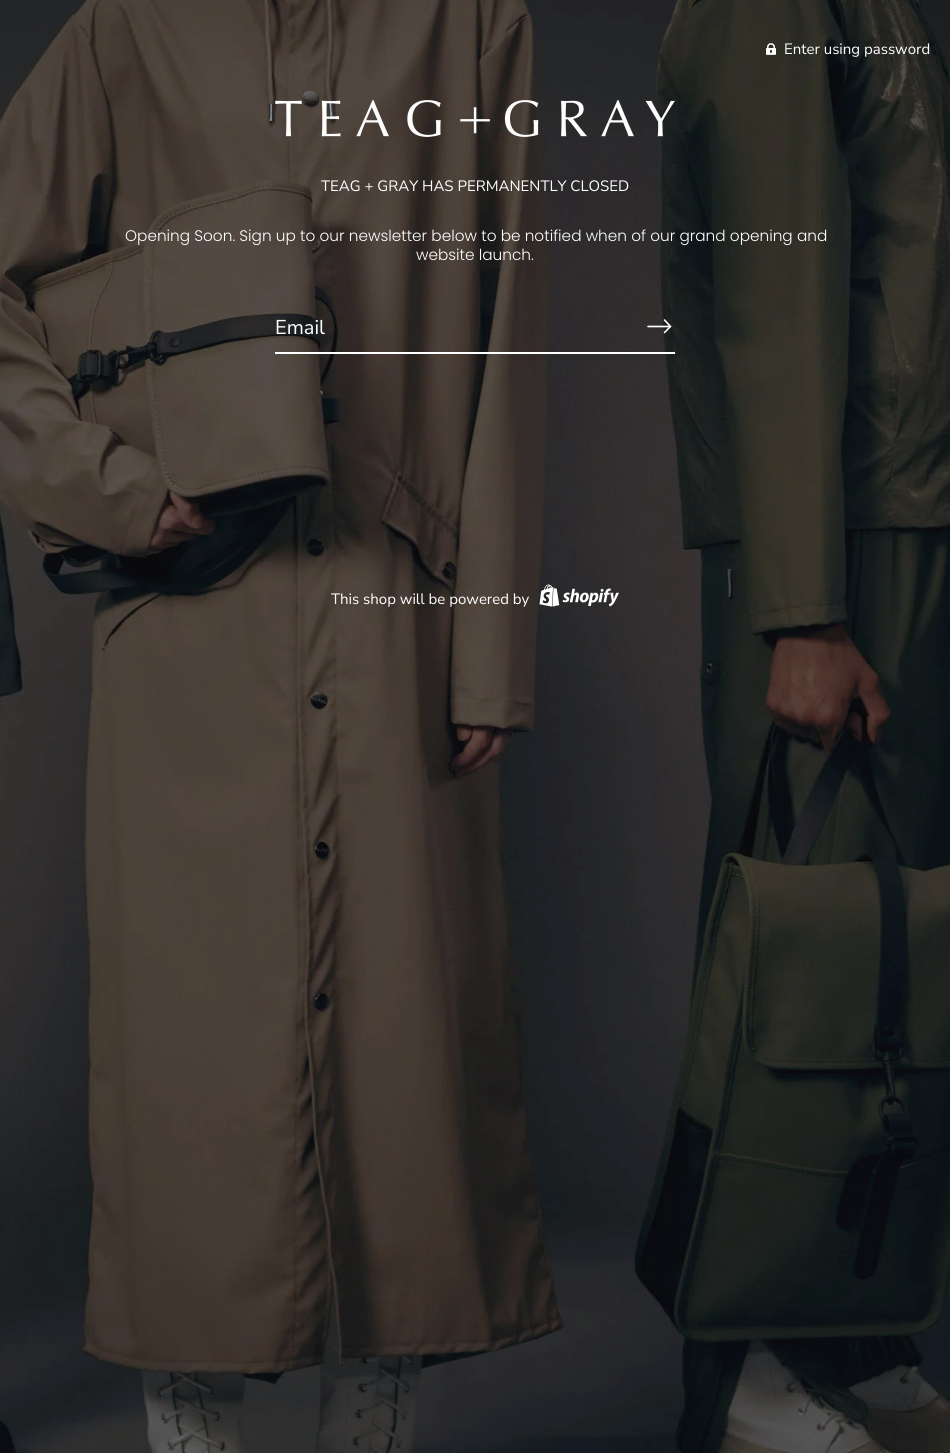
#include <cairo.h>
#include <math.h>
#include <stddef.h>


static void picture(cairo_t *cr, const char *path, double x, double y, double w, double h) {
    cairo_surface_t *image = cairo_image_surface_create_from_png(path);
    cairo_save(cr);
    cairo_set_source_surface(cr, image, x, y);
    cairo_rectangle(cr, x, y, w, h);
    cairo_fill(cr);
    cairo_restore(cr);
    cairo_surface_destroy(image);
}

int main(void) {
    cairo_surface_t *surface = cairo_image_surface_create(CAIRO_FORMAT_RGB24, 950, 1453);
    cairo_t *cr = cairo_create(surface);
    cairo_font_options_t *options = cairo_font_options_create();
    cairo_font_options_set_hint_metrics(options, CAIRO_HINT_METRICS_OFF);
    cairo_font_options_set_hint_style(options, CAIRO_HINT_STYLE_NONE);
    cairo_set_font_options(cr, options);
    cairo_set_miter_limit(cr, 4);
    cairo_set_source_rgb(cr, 1, 1, 1);
    cairo_paint(cr);
    picture(cr, "img1.png", 0, 0, 950, 1453);
    picture(cr, "img2.png", 766, 43, 10, 12);
    cairo_select_font_face(cr, "Nunito Sans", CAIRO_FONT_SLANT_NORMAL, CAIRO_FONT_WEIGHT_NORMAL);
    cairo_set_font_size(cr, 15);
    cairo_set_source_rgb(cr, 1, 1, 1);
    cairo_move_to(cr, 784, 54);
    cairo_show_text(cr, "Enter using password");
    picture(cr, "img3.png", 275, 100, 400, 37);
    cairo_move_to(cr, 321, 191);
    cairo_show_text(cr, "TEAG + GRAY HAS PERMANENTLY CLOSED");
    cairo_select_font_face(cr, "Poppins Light", CAIRO_FONT_SLANT_NORMAL, CAIRO_FONT_WEIGHT_NORMAL);
    cairo_set_font_size(cr, 15.3);
    cairo_move_to(cr, 125, 241);
    cairo_show_text(cr, "Opening Soon. Sign up to our newsletter below to be notified when of our grand opening and");
    cairo_move_to(cr, 416, 260);
    cairo_show_text(cr, "website launch.");
    cairo_select_font_face(cr, "Nunito Sans", CAIRO_FONT_SLANT_NORMAL, CAIRO_FONT_WEIGHT_NORMAL);
    cairo_set_font_size(cr, 20);
    cairo_move_to(cr, 275, 334);
    cairo_show_text(cr, "Email");
    cairo_new_path(cr);
    cairo_move_to(cr, 664.5, 332.5);
    cairo_line_to(cr, 670.5, 326.5);
    cairo_line_to(cr, 664.5, 320);
    cairo_set_line_width(cr, 1.6);
    cairo_set_line_cap(cr, CAIRO_LINE_CAP_ROUND);
    cairo_stroke(cr);
    cairo_new_path(cr);
    cairo_move_to(cr, 670, 326.5);
    cairo_line_to(cr, 648, 326.5);
    cairo_set_line_join(cr, CAIRO_LINE_JOIN_ROUND);
    cairo_stroke(cr);
    cairo_rectangle(cr, 275, 352, 400, 2);
    cairo_fill(cr);
    cairo_set_font_size(cr, 15);
    cairo_move_to(cr, 331, 604);
    cairo_show_text(cr, "This shop will be powered by");
    picture(cr, "img4.png", 539, 584, 80, 23);
    cairo_surface_write_to_png(surface, "page.png");
    cairo_font_options_destroy(options);
    cairo_destroy(cr);
    cairo_surface_destroy(surface);
    return 0;
}
